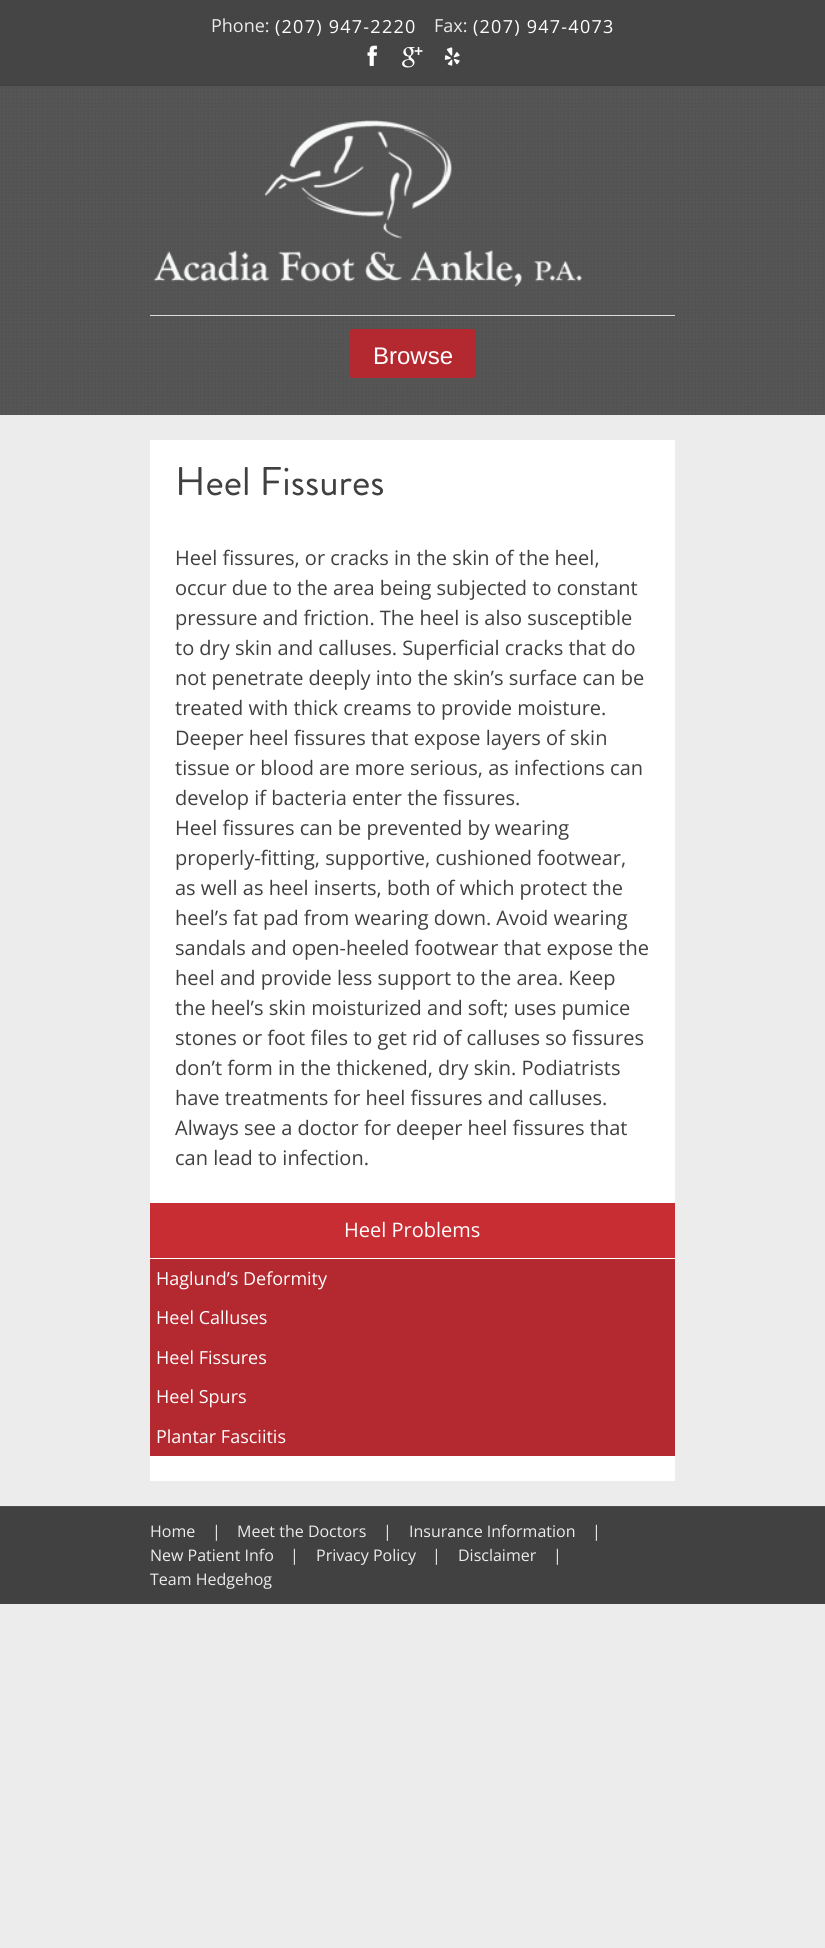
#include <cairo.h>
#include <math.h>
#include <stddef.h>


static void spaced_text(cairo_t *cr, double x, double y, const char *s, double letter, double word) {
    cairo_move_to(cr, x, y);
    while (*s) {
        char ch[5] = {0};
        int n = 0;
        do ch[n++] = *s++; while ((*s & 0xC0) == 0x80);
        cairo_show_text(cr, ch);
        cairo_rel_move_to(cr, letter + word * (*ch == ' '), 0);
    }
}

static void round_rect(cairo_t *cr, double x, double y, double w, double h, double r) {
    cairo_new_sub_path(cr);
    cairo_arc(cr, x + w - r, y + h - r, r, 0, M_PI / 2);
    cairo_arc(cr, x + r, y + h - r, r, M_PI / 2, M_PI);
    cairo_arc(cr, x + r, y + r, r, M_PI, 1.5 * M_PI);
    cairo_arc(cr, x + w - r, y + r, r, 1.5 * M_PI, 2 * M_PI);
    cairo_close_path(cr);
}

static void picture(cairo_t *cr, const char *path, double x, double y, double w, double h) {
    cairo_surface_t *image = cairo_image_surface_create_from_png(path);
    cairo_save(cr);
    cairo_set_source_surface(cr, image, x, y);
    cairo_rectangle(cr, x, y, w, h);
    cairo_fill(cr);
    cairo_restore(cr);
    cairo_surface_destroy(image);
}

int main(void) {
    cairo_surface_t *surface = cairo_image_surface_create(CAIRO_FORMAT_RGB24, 825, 1948);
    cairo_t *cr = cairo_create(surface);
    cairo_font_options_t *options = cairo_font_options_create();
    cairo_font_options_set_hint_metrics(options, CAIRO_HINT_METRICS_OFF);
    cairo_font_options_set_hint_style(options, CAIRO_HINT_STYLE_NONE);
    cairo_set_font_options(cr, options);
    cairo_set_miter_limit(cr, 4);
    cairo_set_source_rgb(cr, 0.922, 0.922, 0.922);
    cairo_paint(cr);
    cairo_set_source_rgb(cr, 0.388, 0.388, 0.388);
    cairo_rectangle(cr, 0, 0, 825, 415);
    cairo_fill(cr);
    picture(cr, "img1.png", 0, 0, 825, 415);
    cairo_set_source_rgba(cr, 0.255, 0.255, 0.255, 0.8);
    cairo_rectangle(cr, 0, 0, 825, 85);
    cairo_fill(cr);
    cairo_set_source_rgb(cr, 0.255, 0.255, 0.255);
    cairo_rectangle(cr, 0, 85, 825, 1);
    cairo_fill(cr);
    cairo_select_font_face(cr, "Open Sans", CAIRO_FONT_SLANT_NORMAL, CAIRO_FONT_WEIGHT_NORMAL);
    cairo_set_font_size(cr, 18);
    cairo_set_source_rgb(cr, 0.922, 0.922, 0.922);
    cairo_move_to(cr, 211, 32);
    cairo_show_text(cr, "Phone:");
    cairo_set_source_rgb(cr, 1, 1, 1);
    spaced_text(cr, 275, 33, "(207) 947-2220", 1.25, 0);
    cairo_set_source_rgb(cr, 0.922, 0.922, 0.922);
    cairo_move_to(cr, 434, 32);
    cairo_show_text(cr, "Fax:");
    cairo_set_source_rgb(cr, 1, 1, 1);
    spaced_text(cr, 473, 33, "(207) 947-4073", 1.25, 0);
    picture(cr, "img2.png", 367, 45, 10, 21);
    picture(cr, "img3.png", 402, 47, 21, 21);
    picture(cr, "img4.png", 444, 47, 16, 19);
    picture(cr, "img5.png", 153, 120, 430, 167);
    cairo_set_source_rgb(cr, 0.867, 0.867, 0.867);
    cairo_rectangle(cr, 150, 315, 525, 1);
    cairo_fill(cr);
    cairo_set_source_rgb(cr, 0.706, 0.157, 0.184);
    round_rect(cr, 349, 329, 127, 49, 4);
    cairo_fill(cr);
    cairo_select_font_face(cr, "Liberation Sans", CAIRO_FONT_SLANT_NORMAL, CAIRO_FONT_WEIGHT_NORMAL);
    cairo_set_font_size(cr, 24);
    cairo_set_source_rgb(cr, 1, 1, 1);
    cairo_move_to(cr, 373, 364);
    cairo_show_text(cr, "Browse");
    cairo_rectangle(cr, 150, 440, 525, 1041);
    cairo_fill(cr);
    cairo_select_font_face(cr, "Brandon Grotesque", CAIRO_FONT_SLANT_NORMAL, CAIRO_FONT_WEIGHT_NORMAL);
    cairo_set_font_size(cr, 40);
    cairo_set_source_rgb(cr, 0.251, 0.251, 0.251);
    cairo_move_to(cr, 175, 495);
    cairo_show_text(cr, "Heel Fissures");
    cairo_select_font_face(cr, "Open Sans", CAIRO_FONT_SLANT_NORMAL, CAIRO_FONT_WEIGHT_NORMAL);
    cairo_set_font_size(cr, 20);
    cairo_move_to(cr, 175, 565);
    cairo_show_text(cr, "Heel fissures, or cracks in the skin of the heel,");
    cairo_move_to(cr, 175, 595);
    cairo_show_text(cr, "occur due to the area being subjected to constant");
    cairo_move_to(cr, 175, 625);
    cairo_show_text(cr, "pressure and friction. The heel is also susceptible");
    cairo_move_to(cr, 175, 655);
    cairo_show_text(cr, "to dry skin and calluses. Superficial cracks that do");
    cairo_move_to(cr, 175, 685);
    cairo_show_text(cr, "not penetrate deeply into the skin’s surface can be");
    cairo_move_to(cr, 175, 715);
    cairo_show_text(cr, "treated with thick creams to provide moisture.");
    cairo_move_to(cr, 175, 745);
    cairo_show_text(cr, "Deeper heel fissures that expose layers of skin");
    cairo_move_to(cr, 175, 775);
    cairo_show_text(cr, "tissue or blood are more serious, as infections can");
    cairo_move_to(cr, 175, 805);
    cairo_show_text(cr, "develop if bacteria enter the fissures.");
    cairo_move_to(cr, 175, 835);
    cairo_show_text(cr, "Heel fissures can be prevented by wearing");
    cairo_move_to(cr, 175, 865);
    cairo_show_text(cr, "properly-fitting, supportive, cushioned footwear,");
    cairo_move_to(cr, 175, 895);
    cairo_show_text(cr, "as well as heel inserts, both of which protect the");
    cairo_move_to(cr, 175, 925);
    cairo_show_text(cr, "heel’s fat pad from wearing down. Avoid wearing");
    cairo_move_to(cr, 175, 955);
    cairo_show_text(cr, "sandals and open-heeled footwear that expose the");
    cairo_move_to(cr, 175, 985);
    cairo_show_text(cr, "heel and provide less support to the area. Keep");
    cairo_move_to(cr, 175, 1015);
    cairo_show_text(cr, "the heel’s skin moisturized and soft; uses pumice");
    cairo_move_to(cr, 175, 1045);
    cairo_show_text(cr, "stones or foot files to get rid of calluses so fissures");
    cairo_move_to(cr, 175, 1075);
    cairo_show_text(cr, "don’t form in the thickened, dry skin. Podiatrists");
    cairo_move_to(cr, 175, 1105);
    cairo_show_text(cr, "have treatments for heel fissures and calluses.");
    cairo_move_to(cr, 175, 1135);
    cairo_show_text(cr, "Always see a doctor for deeper heel fissures that");
    cairo_move_to(cr, 175, 1165);
    cairo_show_text(cr, "can lead to infection.");
    cairo_set_source_rgb(cr, 0.788, 0.176, 0.204);
    cairo_rectangle(cr, 150, 1203, 525, 55);
    cairo_fill(cr);
    cairo_set_source_rgb(cr, 1, 1, 1);
    cairo_move_to(cr, 344, 1237);
    cairo_show_text(cr, "Heel Problems");
    cairo_set_source_rgb(cr, 0.706, 0.157, 0.184);
    cairo_rectangle(cr, 150, 1259, 525, 197);
    cairo_fill(cr);
    cairo_set_font_size(cr, 18);
    cairo_set_source_rgb(cr, 1, 1, 1);
    cairo_move_to(cr, 156, 1285);
    cairo_show_text(cr, "Haglund’s Deformity");
    cairo_move_to(cr, 156, 1324);
    cairo_show_text(cr, "Heel Calluses");
    cairo_move_to(cr, 156, 1364);
    cairo_show_text(cr, "Heel Fissures");
    cairo_move_to(cr, 156, 1403);
    cairo_show_text(cr, "Heel Spurs");
    cairo_move_to(cr, 156, 1443);
    cairo_show_text(cr, "Plantar Fasciitis");
    cairo_set_source_rgb(cr, 0.255, 0.255, 0.255);
    cairo_rectangle(cr, 0, 1507, 825, 97);
    cairo_fill(cr);
    cairo_set_source_rgb(cr, 0.306, 0.306, 0.306);
    cairo_rectangle(cr, 0, 1506, 825, 1);
    cairo_fill(cr);
    cairo_set_font_size(cr, 16);
    cairo_set_source_rgb(cr, 0.922, 0.922, 0.922);
    cairo_move_to(cr, 150, 1537);
    cairo_show_text(cr, "Home");
    cairo_move_to(cr, 212, 1537);
    cairo_show_text(cr, "|");
    cairo_move_to(cr, 237, 1537);
    cairo_show_text(cr, "Meet the Doctors");
    cairo_move_to(cr, 383, 1537);
    cairo_show_text(cr, "|");
    cairo_move_to(cr, 409, 1537);
    cairo_show_text(cr, "Insurance Information");
    cairo_move_to(cr, 592, 1537);
    cairo_show_text(cr, "|");
    cairo_move_to(cr, 150, 1561);
    cairo_show_text(cr, "New Patient Info");
    cairo_move_to(cr, 290, 1561);
    cairo_show_text(cr, "|");
    cairo_move_to(cr, 316, 1561);
    cairo_show_text(cr, "Privacy Policy");
    cairo_move_to(cr, 432, 1561);
    cairo_show_text(cr, "|");
    cairo_move_to(cr, 458, 1561);
    cairo_show_text(cr, "Disclaimer");
    cairo_move_to(cr, 553, 1561);
    cairo_show_text(cr, "|");
    cairo_move_to(cr, 150, 1585);
    cairo_show_text(cr, "Team Hedgehog");
    cairo_surface_write_to_png(surface, "page.png");
    cairo_font_options_destroy(options);
    cairo_destroy(cr);
    cairo_surface_destroy(surface);
    return 0;
}
